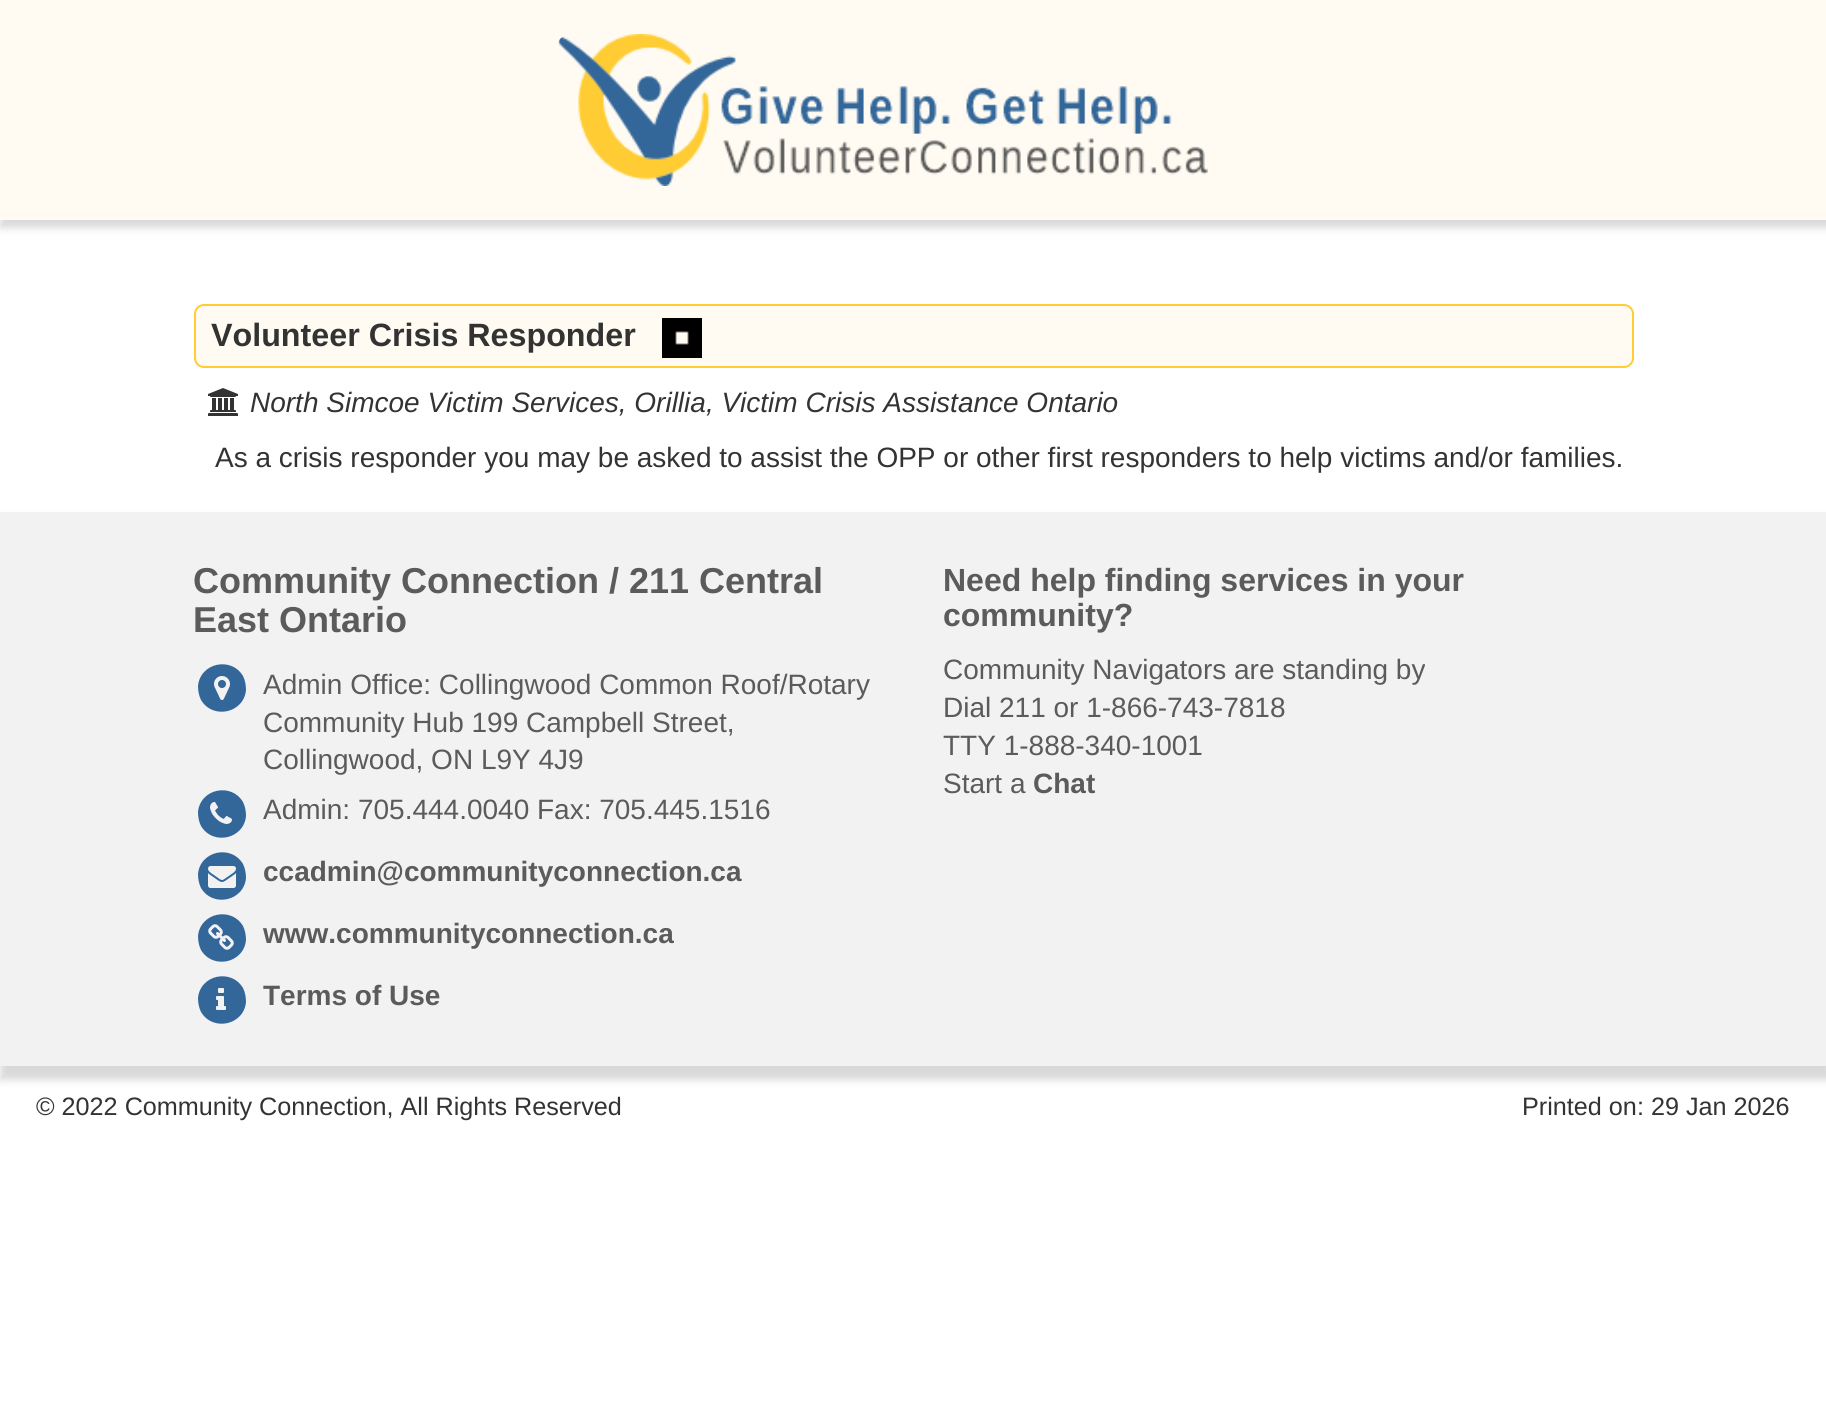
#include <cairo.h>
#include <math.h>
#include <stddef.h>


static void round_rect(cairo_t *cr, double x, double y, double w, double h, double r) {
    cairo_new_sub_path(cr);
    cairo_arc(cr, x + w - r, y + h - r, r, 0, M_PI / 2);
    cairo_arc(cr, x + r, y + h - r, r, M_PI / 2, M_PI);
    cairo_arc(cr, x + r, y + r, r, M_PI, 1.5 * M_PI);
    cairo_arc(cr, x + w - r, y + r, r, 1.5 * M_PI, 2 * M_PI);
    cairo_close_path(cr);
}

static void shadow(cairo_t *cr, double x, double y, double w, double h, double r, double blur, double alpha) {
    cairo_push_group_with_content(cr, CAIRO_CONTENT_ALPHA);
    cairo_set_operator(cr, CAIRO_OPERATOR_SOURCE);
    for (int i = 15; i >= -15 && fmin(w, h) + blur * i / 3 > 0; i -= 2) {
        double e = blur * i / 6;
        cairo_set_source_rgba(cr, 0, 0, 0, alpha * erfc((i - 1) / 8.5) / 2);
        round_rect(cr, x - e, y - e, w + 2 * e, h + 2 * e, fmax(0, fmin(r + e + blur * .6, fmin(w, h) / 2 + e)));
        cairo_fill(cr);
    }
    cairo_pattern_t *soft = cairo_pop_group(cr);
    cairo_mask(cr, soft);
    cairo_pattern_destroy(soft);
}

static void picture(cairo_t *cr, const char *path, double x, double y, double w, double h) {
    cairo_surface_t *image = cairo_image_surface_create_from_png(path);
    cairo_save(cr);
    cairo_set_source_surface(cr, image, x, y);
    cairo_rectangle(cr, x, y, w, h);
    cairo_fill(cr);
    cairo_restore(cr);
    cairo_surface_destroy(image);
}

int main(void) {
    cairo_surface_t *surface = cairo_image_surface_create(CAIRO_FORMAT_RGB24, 1826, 1422);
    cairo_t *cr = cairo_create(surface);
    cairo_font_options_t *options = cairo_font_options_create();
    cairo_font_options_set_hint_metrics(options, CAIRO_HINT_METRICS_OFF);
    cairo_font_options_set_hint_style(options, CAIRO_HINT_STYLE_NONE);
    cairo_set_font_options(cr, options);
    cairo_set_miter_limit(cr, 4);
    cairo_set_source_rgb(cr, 1, 1, 1);
    cairo_paint(cr);
    cairo_set_source_rgb(cr, 0.4, 0.4, 0.4);
    shadow(cr, 0, 0, 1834, 228, 0, 4, 0.25);
    cairo_set_source_rgb(cr, 1, 0.984, 0.949);
    cairo_rectangle(cr, 0, 0, 1826, 220);
    cairo_fill(cr);
    picture(cr, "img1.png", 558, 34, 650, 152);
    round_rect(cr, 195, 305, 1438, 62, 9);
    cairo_fill_preserve(cr);
    cairo_set_source_rgb(cr, 1, 0.8, 0.2);
    cairo_stroke(cr);
    cairo_select_font_face(cr, "Liberation Sans", CAIRO_FONT_SLANT_NORMAL, CAIRO_FONT_WEIGHT_BOLD);
    cairo_set_font_size(cr, 32.25);
    cairo_set_source_rgb(cr, 0.2, 0.2, 0.2);
    cairo_move_to(cr, 211, 346);
    cairo_show_text(cr, "Volunteer Crisis Responder");
    picture(cr, "img2.png", 662, 318, 40, 40);
    picture(cr, "img3.png", 208, 388, 30, 28);
    cairo_select_font_face(cr, "Liberation Sans", CAIRO_FONT_SLANT_ITALIC, CAIRO_FONT_WEIGHT_NORMAL);
    cairo_set_font_size(cr, 28);
    cairo_move_to(cr, 250, 412);
    cairo_show_text(cr, "North Simcoe Victim Services, Orillia, Victim Crisis Assistance Ontario");
    cairo_select_font_face(cr, "Liberation Sans", CAIRO_FONT_SLANT_NORMAL, CAIRO_FONT_WEIGHT_NORMAL);
    cairo_move_to(cr, 215, 467);
    cairo_show_text(cr, "As a crisis responder you may be asked to assist the OPP or other first responders to help victims and/or families.");
    cairo_set_source_rgb(cr, 0.4, 0.4, 0.4);
    shadow(cr, 0, 518, 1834, 562, 0, 4, 0.25);
    cairo_set_source_rgb(cr, 0.949, 0.949, 0.949);
    cairo_rectangle(cr, 0, 512, 1826, 554);
    cairo_fill(cr);
    cairo_select_font_face(cr, "Liberation Sans", CAIRO_FONT_SLANT_NORMAL, CAIRO_FONT_WEIGHT_BOLD);
    cairo_set_font_size(cr, 36);
    cairo_set_source_rgb(cr, 0.357, 0.357, 0.357);
    cairo_move_to(cr, 193, 593);
    cairo_show_text(cr, "Community Connection / 211 Central");
    cairo_move_to(cr, 193, 632);
    cairo_show_text(cr, "East Ontario");
    cairo_set_source_rgb(cr, 0.2, 0.4, 0.6);
    cairo_new_path(cr);
    cairo_move_to(cr, 243, 676);
    cairo_curve_to(cr, 245, 680, 246, 685, 246, 690);
    cairo_curve_to(cr, 244, 713, 213, 720, 201, 700);
    cairo_curve_to(cr, 199, 696, 198, 691, 198, 686);
    cairo_curve_to(cr, 200, 663, 231, 656, 243, 676);
    cairo_close_path(cr);
    cairo_fill(cr);
    picture(cr, "img4.png", 214, 676, 16, 24);
    cairo_select_font_face(cr, "Liberation Sans", CAIRO_FONT_SLANT_NORMAL, CAIRO_FONT_WEIGHT_NORMAL);
    cairo_set_font_size(cr, 28);
    cairo_set_source_rgb(cr, 0.357, 0.357, 0.357);
    cairo_move_to(cr, 263, 694);
    cairo_show_text(cr, "Admin Office: Collingwood Common Roof/Rotary");
    cairo_move_to(cr, 263, 732);
    cairo_show_text(cr, "Community Hub 199 Campbell Street,");
    cairo_move_to(cr, 263, 769);
    cairo_show_text(cr, "Collingwood, ON L9Y 4J9");
    cairo_set_source_rgb(cr, 0.2, 0.4, 0.6);
    cairo_new_path(cr);
    cairo_move_to(cr, 243, 802);
    cairo_curve_to(cr, 245, 806, 246, 811, 246, 816);
    cairo_curve_to(cr, 244, 839, 213, 846, 201, 826);
    cairo_curve_to(cr, 199, 822, 198, 817, 198, 812);
    cairo_curve_to(cr, 200, 789, 231, 782, 243, 802);
    cairo_close_path(cr);
    cairo_fill(cr);
    picture(cr, "img5.png", 210, 802, 22, 22);
    cairo_set_source_rgb(cr, 0.357, 0.357, 0.357);
    cairo_move_to(cr, 263, 819);
    cairo_show_text(cr, "Admin: 705.444.0040 Fax: 705.445.1516");
    cairo_set_source_rgb(cr, 0.2, 0.4, 0.6);
    cairo_new_path(cr);
    cairo_move_to(cr, 243, 864);
    cairo_curve_to(cr, 245, 868, 246, 873, 246, 878);
    cairo_curve_to(cr, 244, 901, 213, 908, 201, 888);
    cairo_curve_to(cr, 199, 884, 198, 879, 198, 874);
    cairo_curve_to(cr, 200, 851, 231, 844, 243, 864);
    cairo_close_path(cr);
    cairo_fill(cr);
    picture(cr, "img6.png", 208, 866, 28, 22);
    cairo_select_font_face(cr, "Liberation Sans", CAIRO_FONT_SLANT_NORMAL, CAIRO_FONT_WEIGHT_BOLD);
    cairo_set_source_rgb(cr, 0.357, 0.357, 0.357);
    cairo_move_to(cr, 263, 881);
    cairo_show_text(cr, "ccadmin@communityconnection.ca");
    cairo_set_source_rgb(cr, 0.2, 0.4, 0.6);
    cairo_new_path(cr);
    cairo_move_to(cr, 243, 926);
    cairo_curve_to(cr, 245, 930, 246, 935, 246, 940);
    cairo_curve_to(cr, 244, 963, 213, 970, 201, 950);
    cairo_curve_to(cr, 199, 946, 198, 941, 198, 936);
    cairo_curve_to(cr, 200, 913, 231, 906, 243, 926);
    cairo_close_path(cr);
    cairo_fill(cr);
    picture(cr, "img7.png", 208, 924, 26, 26);
    cairo_set_source_rgb(cr, 0.357, 0.357, 0.357);
    cairo_move_to(cr, 263, 943);
    cairo_show_text(cr, "www.communityconnection.ca");
    cairo_set_source_rgb(cr, 0.2, 0.4, 0.6);
    cairo_new_path(cr);
    cairo_move_to(cr, 243, 988);
    cairo_curve_to(cr, 245, 992, 246, 997, 246, 1002);
    cairo_curve_to(cr, 244, 1025, 213, 1032, 201, 1012);
    cairo_curve_to(cr, 199, 1008, 198, 1003, 198, 998);
    cairo_curve_to(cr, 200, 975, 231, 968, 243, 988);
    cairo_close_path(cr);
    cairo_fill(cr);
    picture(cr, "img8.png", 216, 988, 10, 22);
    cairo_set_source_rgb(cr, 0.357, 0.357, 0.357);
    cairo_move_to(cr, 263, 1005);
    cairo_show_text(cr, "Terms of Use");
    cairo_set_font_size(cr, 32);
    cairo_move_to(cr, 943, 591);
    cairo_show_text(cr, "Need help finding services in your");
    cairo_move_to(cr, 943, 626);
    cairo_show_text(cr, "community?");
    cairo_select_font_face(cr, "Liberation Sans", CAIRO_FONT_SLANT_NORMAL, CAIRO_FONT_WEIGHT_NORMAL);
    cairo_set_font_size(cr, 28);
    cairo_move_to(cr, 943, 679);
    cairo_show_text(cr, "Community Navigators are standing by");
    cairo_move_to(cr, 943, 717);
    cairo_show_text(cr, "Dial 211 or 1-866-743-7818");
    cairo_move_to(cr, 943, 755);
    cairo_show_text(cr, "TTY 1-888-340-1001");
    cairo_move_to(cr, 943, 793);
    cairo_show_text(cr, "Start a");
    cairo_select_font_face(cr, "Liberation Sans", CAIRO_FONT_SLANT_NORMAL, CAIRO_FONT_WEIGHT_BOLD);
    cairo_move_to(cr, 1033, 793);
    cairo_show_text(cr, "Chat");
    cairo_select_font_face(cr, "Liberation Sans", CAIRO_FONT_SLANT_NORMAL, CAIRO_FONT_WEIGHT_NORMAL);
    cairo_set_font_size(cr, 25.2);
    cairo_set_source_rgb(cr, 0.2, 0.2, 0.2);
    cairo_move_to(cr, 36, 1115);
    cairo_show_text(cr, "© 2022 Community Connection, All Rights Reserved");
    cairo_move_to(cr, 1522, 1115);
    cairo_show_text(cr, "Printed on: 29 Jan 2026");
    cairo_surface_write_to_png(surface, "page.png");
    cairo_font_options_destroy(options);
    cairo_destroy(cr);
    cairo_surface_destroy(surface);
    return 0;
}
